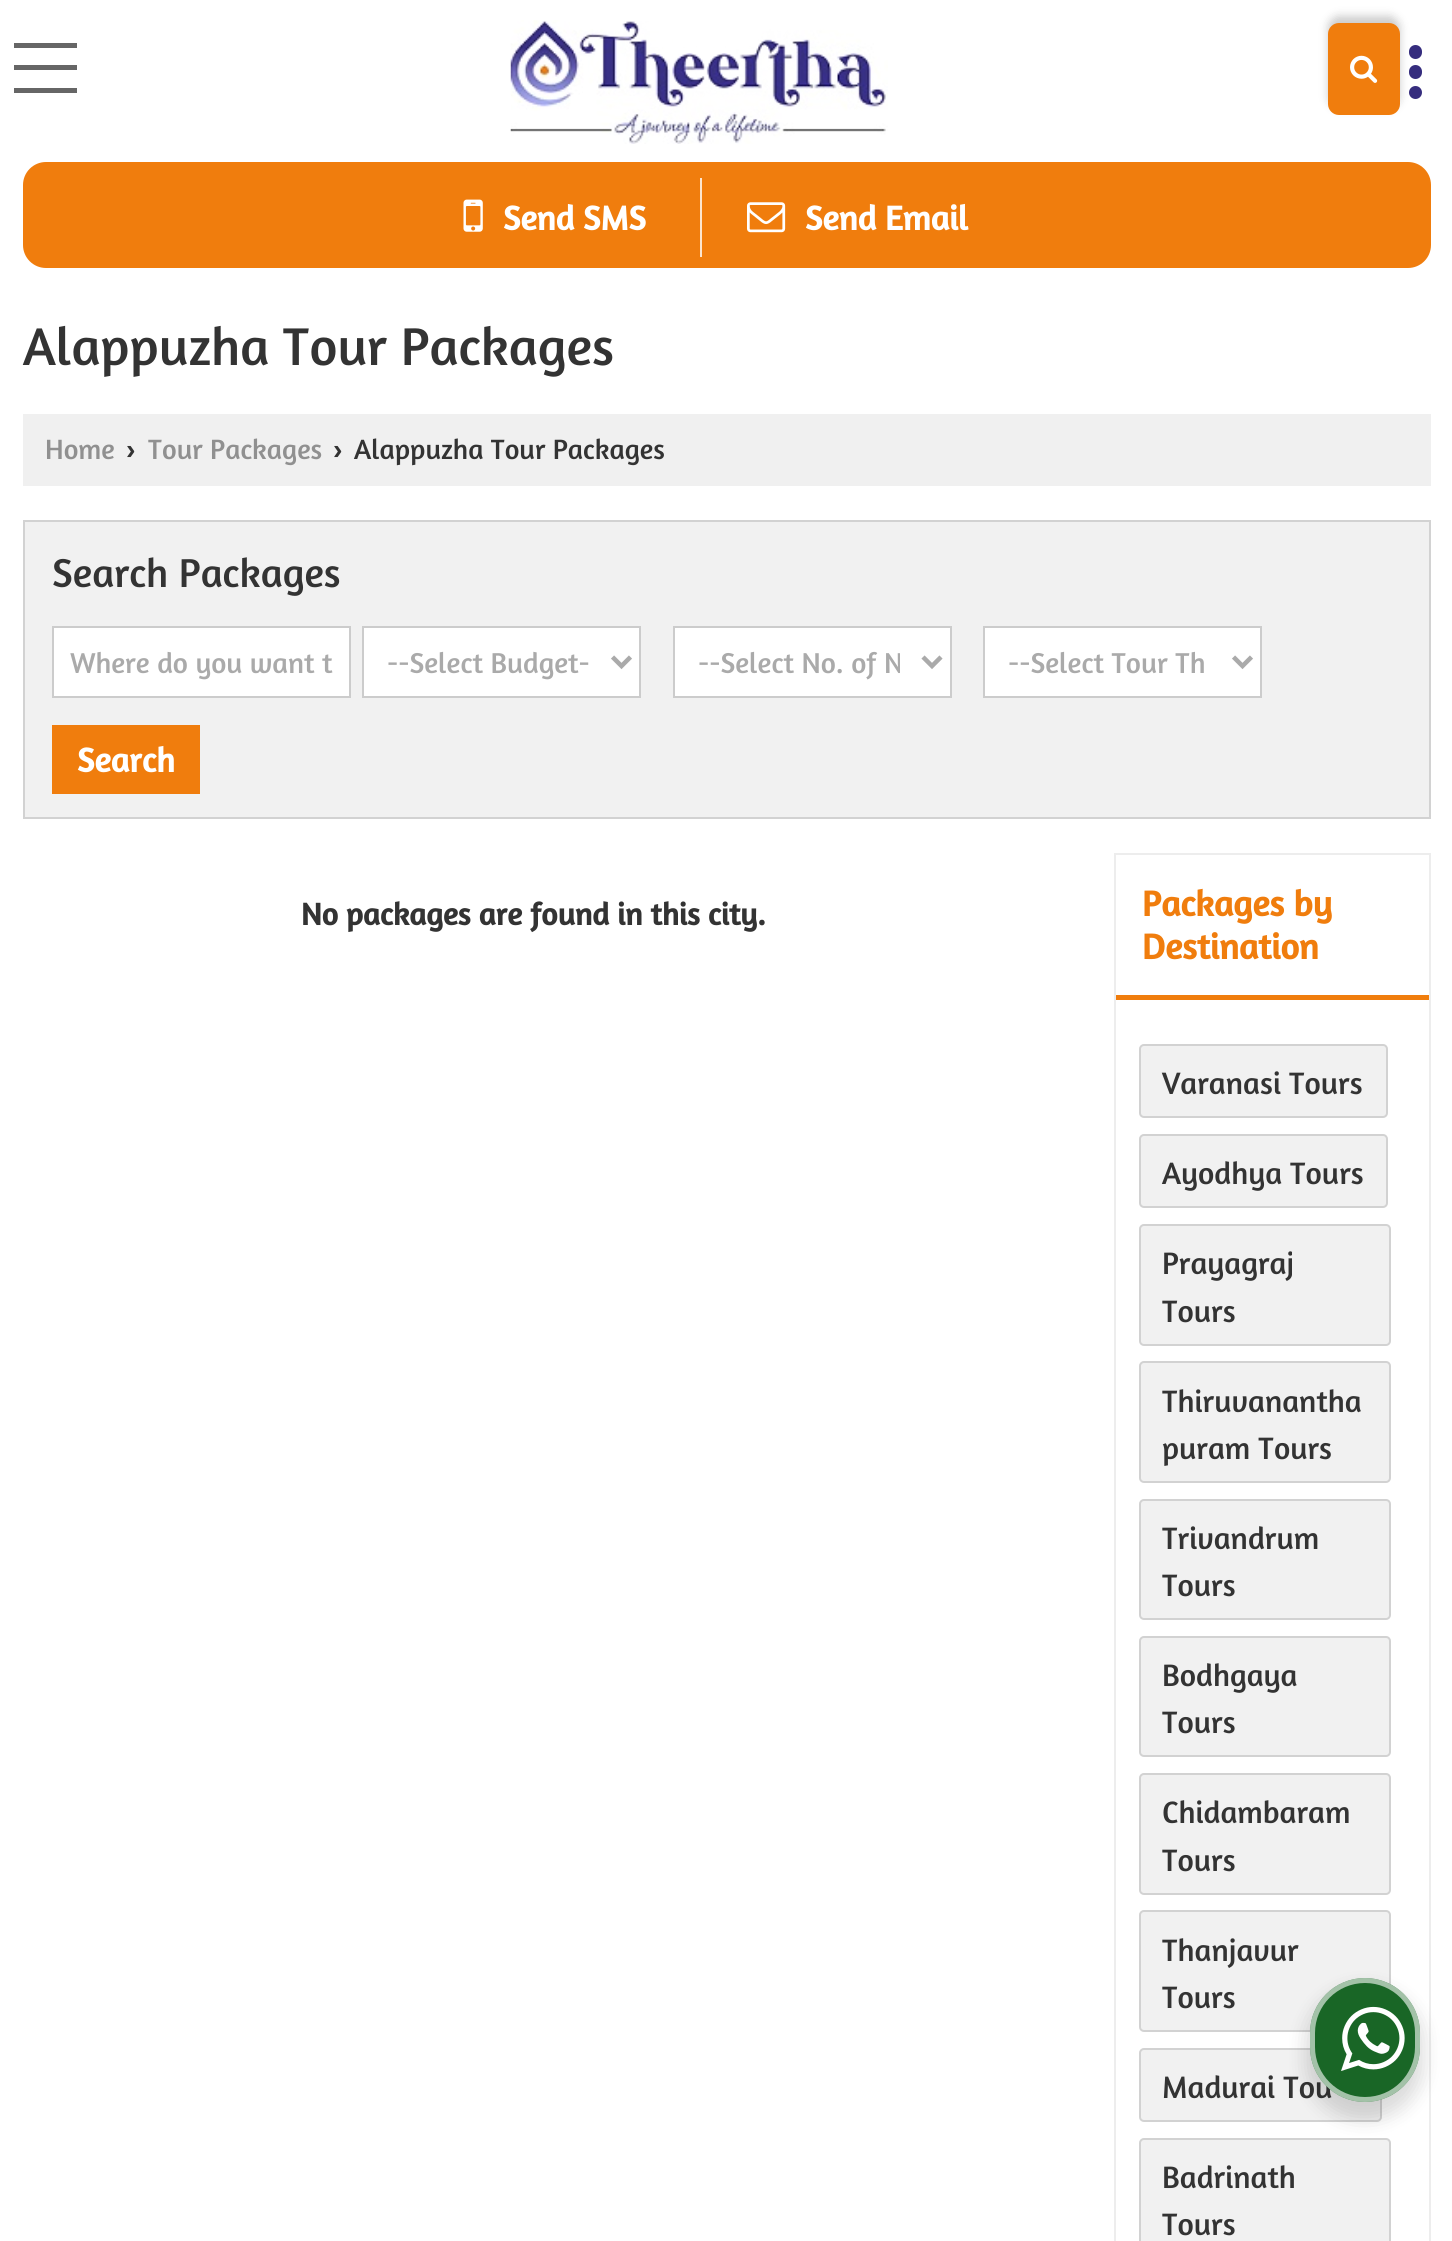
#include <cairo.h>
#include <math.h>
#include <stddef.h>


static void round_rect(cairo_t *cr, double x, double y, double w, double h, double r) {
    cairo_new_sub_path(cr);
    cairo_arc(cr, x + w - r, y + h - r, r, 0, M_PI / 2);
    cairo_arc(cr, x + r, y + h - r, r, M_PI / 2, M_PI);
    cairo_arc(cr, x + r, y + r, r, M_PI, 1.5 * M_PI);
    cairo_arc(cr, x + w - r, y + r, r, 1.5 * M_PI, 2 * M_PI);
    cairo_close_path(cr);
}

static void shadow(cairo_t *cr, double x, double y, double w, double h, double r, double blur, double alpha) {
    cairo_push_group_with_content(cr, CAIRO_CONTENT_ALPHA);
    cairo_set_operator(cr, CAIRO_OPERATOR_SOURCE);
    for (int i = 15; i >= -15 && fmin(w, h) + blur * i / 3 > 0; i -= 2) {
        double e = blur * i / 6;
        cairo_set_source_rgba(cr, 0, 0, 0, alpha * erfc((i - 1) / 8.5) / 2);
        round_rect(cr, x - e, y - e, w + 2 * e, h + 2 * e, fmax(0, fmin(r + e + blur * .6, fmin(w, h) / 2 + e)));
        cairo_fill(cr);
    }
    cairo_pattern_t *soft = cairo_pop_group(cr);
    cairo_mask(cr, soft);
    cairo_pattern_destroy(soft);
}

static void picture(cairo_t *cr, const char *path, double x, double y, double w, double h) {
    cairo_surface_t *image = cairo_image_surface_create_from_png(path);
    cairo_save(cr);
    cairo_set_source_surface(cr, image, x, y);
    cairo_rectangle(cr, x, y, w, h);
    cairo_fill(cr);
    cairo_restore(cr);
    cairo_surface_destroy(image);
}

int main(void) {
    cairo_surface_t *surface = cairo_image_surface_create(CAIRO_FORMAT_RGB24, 1452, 2241);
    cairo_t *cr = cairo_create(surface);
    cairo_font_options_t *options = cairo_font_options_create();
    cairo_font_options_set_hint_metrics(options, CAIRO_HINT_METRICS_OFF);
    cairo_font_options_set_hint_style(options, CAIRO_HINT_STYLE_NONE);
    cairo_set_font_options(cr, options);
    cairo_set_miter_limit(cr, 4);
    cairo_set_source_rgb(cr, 1, 1, 1);
    cairo_paint(cr);
    picture(cr, "img1.png", 510, 20, 378, 124);
    cairo_set_source_rgb(cr, 0.212, 0.176, 0.494);
    round_rect(cr, 1409, 65, 13, 14, 6.5);
    cairo_fill(cr);
    round_rect(cr, 1409, 45, 13, 14, 6.5);
    cairo_fill(cr);
    cairo_arc(cr, 1415.5, 92.5, 6.5, 0, 2 * M_PI);
    cairo_fill(cr);
    cairo_set_source_rgb(cr, 0.4, 0.4, 0.4);
    cairo_rectangle(cr, 14, 65, 63, 5);
    cairo_fill(cr);
    cairo_rectangle(cr, 14, 43, 63, 5);
    cairo_fill(cr);
    cairo_rectangle(cr, 14, 88, 63, 5);
    cairo_fill(cr);
    cairo_set_source_rgb(cr, 0.941, 0.49, 0.051);
    round_rect(cr, 23, 162, 1408, 106, 23);
    cairo_fill(cr);
    cairo_set_source_rgb(cr, 0, 0, 0);
    shadow(cr, 1328, 16, 72, 92, 11, 4.5, 0.2);
    cairo_set_source_rgb(cr, 0.941, 0.49, 0.051);
    round_rect(cr, 1328, 23, 72, 92, 11);
    cairo_fill(cr);
    picture(cr, "img2.png", 1350, 55, 28, 28);
    picture(cr, "img3.png", 463, 199, 20, 33);
    cairo_select_font_face(cr, "Amaranth", CAIRO_FONT_SLANT_NORMAL, CAIRO_FONT_WEIGHT_BOLD);
    cairo_set_font_size(cr, 34.5);
    cairo_set_source_rgb(cr, 1, 1, 1);
    cairo_move_to(cr, 503, 230);
    cairo_show_text(cr, "Send SMS");
    cairo_set_source_rgb(cr, 0.988, 0.898, 0.812);
    cairo_rectangle(cr, 700, 178, 2, 79);
    cairo_fill(cr);
    picture(cr, "img4.png", 747, 202, 39, 31);
    cairo_set_source_rgb(cr, 1, 1, 1);
    cairo_move_to(cr, 805, 230);
    cairo_show_text(cr, "Send Email");
    cairo_select_font_face(cr, "Amaranth", CAIRO_FONT_SLANT_NORMAL, CAIRO_FONT_WEIGHT_NORMAL);
    cairo_set_font_size(cr, 54);
    cairo_set_source_rgb(cr, 0.2, 0.2, 0.2);
    cairo_move_to(cr, 23, 365);
    cairo_show_text(cr, "Alappuzha Tour Packages");
    cairo_set_source_rgb(cr, 0.941, 0.941, 0.941);
    cairo_rectangle(cr, 23, 414, 1408, 72);
    cairo_fill(cr);
    cairo_set_font_size(cr, 28.4);
    cairo_set_source_rgb(cr, 0.565, 0.565, 0.565);
    cairo_move_to(cr, 45, 459);
    cairo_show_text(cr, "Home");
    cairo_select_font_face(cr, "Liberation Sans", CAIRO_FONT_SLANT_NORMAL, CAIRO_FONT_WEIGHT_BOLD);
    cairo_set_source_rgb(cr, 0.2, 0.2, 0.2);
    cairo_move_to(cr, 126, 459);
    cairo_show_text(cr, "›");
    cairo_select_font_face(cr, "Amaranth", CAIRO_FONT_SLANT_NORMAL, CAIRO_FONT_WEIGHT_NORMAL);
    cairo_set_source_rgb(cr, 0.565, 0.565, 0.565);
    cairo_move_to(cr, 148, 459);
    cairo_show_text(cr, "Tour Packages");
    cairo_select_font_face(cr, "Liberation Sans", CAIRO_FONT_SLANT_NORMAL, CAIRO_FONT_WEIGHT_BOLD);
    cairo_set_source_rgb(cr, 0.2, 0.2, 0.2);
    cairo_move_to(cr, 333, 459);
    cairo_show_text(cr, "›");
    cairo_select_font_face(cr, "Amaranth", CAIRO_FONT_SLANT_NORMAL, CAIRO_FONT_WEIGHT_NORMAL);
    cairo_move_to(cr, 354, 459);
    cairo_show_text(cr, "Alappuzha Tour Packages");
    cairo_set_source_rgb(cr, 0.945, 0.945, 0.945);
    cairo_rectangle(cr, 24, 521, 1406, 297);
    cairo_fill_preserve(cr);
    cairo_set_source_rgb(cr, 0.824, 0.824, 0.824);
    cairo_stroke(cr);
    cairo_set_font_size(cr, 41);
    cairo_set_source_rgb(cr, 0.2, 0.2, 0.2);
    cairo_move_to(cr, 52, 587);
    cairo_show_text(cr, "Search Packages");
    cairo_set_source_rgb(cr, 1, 1, 1);
    cairo_rectangle(cr, 53, 627, 297, 70);
    cairo_fill_preserve(cr);
    cairo_set_source_rgb(cr, 0.8, 0.8, 0.8);
    cairo_stroke(cr);
    cairo_set_font_size(cr, 29.25);
    cairo_set_source_rgb(cr, 0.667, 0.667, 0.667);
    cairo_move_to(cr, 70, 673);
    cairo_show_text(cr, "Where do you want t");
    cairo_set_source_rgb(cr, 1, 1, 1);
    cairo_rectangle(cr, 363, 627, 277, 70);
    cairo_fill_preserve(cr);
    cairo_set_source_rgb(cr, 0.8, 0.8, 0.8);
    cairo_stroke(cr);
    cairo_new_path(cr);
    cairo_move_to(cr, 612.5, 657);
    cairo_line_to(cr, 621.5, 666);
    cairo_line_to(cr, 630.5, 657);
    cairo_set_source_rgb(cr, 0.667, 0.667, 0.667);
    cairo_set_line_width(cr, 4.5);
    cairo_stroke(cr);
    cairo_move_to(cr, 387, 673);
    cairo_show_text(cr, "--Select Budget-");
    cairo_set_source_rgb(cr, 1, 1, 1);
    cairo_rectangle(cr, 674, 627, 277, 70);
    cairo_fill_preserve(cr);
    cairo_set_source_rgb(cr, 0.8, 0.8, 0.8);
    cairo_set_line_width(cr, 2);
    cairo_stroke(cr);
    cairo_new_path(cr);
    cairo_move_to(cr, 923, 657);
    cairo_line_to(cr, 932, 666);
    cairo_line_to(cr, 941, 657);
    cairo_set_source_rgb(cr, 0.667, 0.667, 0.667);
    cairo_set_line_width(cr, 4.5);
    cairo_stroke(cr);
    cairo_save(cr);
    cairo_rectangle(cr, 698, 641, 202, 41);
    cairo_clip(cr);
    cairo_move_to(cr, 698, 673);
    cairo_show_text(cr, "--Select No. of N");
    cairo_restore(cr);
    cairo_set_source_rgb(cr, 1, 1, 1);
    cairo_rectangle(cr, 984, 627, 277, 70);
    cairo_fill_preserve(cr);
    cairo_set_source_rgb(cr, 0.8, 0.8, 0.8);
    cairo_set_line_width(cr, 2);
    cairo_stroke(cr);
    cairo_new_path(cr);
    cairo_move_to(cr, 1233.5, 657);
    cairo_line_to(cr, 1242.5, 666);
    cairo_line_to(cr, 1251.5, 657);
    cairo_set_source_rgb(cr, 0.667, 0.667, 0.667);
    cairo_set_line_width(cr, 4.5);
    cairo_stroke(cr);
    cairo_move_to(cr, 1008, 673);
    cairo_show_text(cr, "--Select Tour Th");
    cairo_set_source_rgb(cr, 0.941, 0.49, 0.051);
    cairo_rectangle(cr, 52, 725, 148, 69);
    cairo_fill(cr);
    cairo_select_font_face(cr, "Amaranth", CAIRO_FONT_SLANT_NORMAL, CAIRO_FONT_WEIGHT_BOLD);
    cairo_set_font_size(cr, 34.5);
    cairo_set_source_rgb(cr, 1, 1, 1);
    cairo_move_to(cr, 77, 772);
    cairo_show_text(cr, "Search");
    cairo_set_font_size(cr, 31.5);
    cairo_set_source_rgb(cr, 0.2, 0.2, 0.2);
    cairo_move_to(cr, 301, 925);
    cairo_show_text(cr, "No packages are found in this city.");
    cairo_rectangle(cr, 1115, 854, 315, 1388);
    cairo_set_source_rgb(cr, 0.929, 0.929, 0.929);
    cairo_set_line_width(cr, 2);
    cairo_stroke(cr);
    cairo_set_source_rgb(cr, 0.941, 0.49, 0.051);
    cairo_rectangle(cr, 1116, 995, 313, 5);
    cairo_fill(cr);
    cairo_set_font_size(cr, 36);
    cairo_move_to(cr, 1142, 916);
    cairo_show_text(cr, "Packages by");
    cairo_move_to(cr, 1142, 959);
    cairo_show_text(cr, "Destination");
    cairo_set_source_rgb(cr, 0.945, 0.945, 0.945);
    round_rect(cr, 1139, 1044, 249, 74, 5);
    cairo_fill(cr);
    round_rect(cr, 1140, 1045, 247, 72, 4);
    cairo_set_source_rgba(cr, 0, 0, 0, 0.13);
    cairo_stroke(cr);
    cairo_select_font_face(cr, "Amaranth", CAIRO_FONT_SLANT_NORMAL, CAIRO_FONT_WEIGHT_NORMAL);
    cairo_set_font_size(cr, 31.5);
    cairo_set_source_rgb(cr, 0.2, 0.2, 0.2);
    cairo_move_to(cr, 1162, 1094);
    cairo_show_text(cr, "Varanasi Tours");
    cairo_set_source_rgb(cr, 0.945, 0.945, 0.945);
    round_rect(cr, 1139, 1134, 249, 74, 5);
    cairo_fill(cr);
    round_rect(cr, 1140, 1135, 247, 72, 4);
    cairo_set_source_rgba(cr, 0, 0, 0, 0.13);
    cairo_stroke(cr);
    cairo_set_source_rgb(cr, 0.2, 0.2, 0.2);
    cairo_move_to(cr, 1162, 1184);
    cairo_show_text(cr, "Ayodhya Tours");
    cairo_set_source_rgb(cr, 0.945, 0.945, 0.945);
    round_rect(cr, 1139, 1224, 252, 122, 5);
    cairo_fill(cr);
    round_rect(cr, 1140, 1225, 250, 120, 4);
    cairo_set_source_rgba(cr, 0, 0, 0, 0.13);
    cairo_stroke(cr);
    cairo_set_source_rgb(cr, 0.2, 0.2, 0.2);
    cairo_move_to(cr, 1162, 1274);
    cairo_show_text(cr, "Prayagraj");
    cairo_move_to(cr, 1162, 1322);
    cairo_show_text(cr, "Tours");
    cairo_set_source_rgb(cr, 0.945, 0.945, 0.945);
    round_rect(cr, 1139, 1361, 252, 122, 5);
    cairo_fill(cr);
    round_rect(cr, 1140, 1362, 250, 120, 4);
    cairo_set_source_rgba(cr, 0, 0, 0, 0.13);
    cairo_stroke(cr);
    cairo_set_source_rgb(cr, 0.2, 0.2, 0.2);
    cairo_move_to(cr, 1162, 1412);
    cairo_show_text(cr, "Thiruvanantha");
    cairo_move_to(cr, 1162, 1459);
    cairo_show_text(cr, "puram Tours");
    cairo_set_source_rgb(cr, 0.945, 0.945, 0.945);
    round_rect(cr, 1139, 1499, 252, 121, 5);
    cairo_fill(cr);
    round_rect(cr, 1140, 1500, 250, 119, 4);
    cairo_set_source_rgba(cr, 0, 0, 0, 0.13);
    cairo_stroke(cr);
    cairo_set_source_rgb(cr, 0.2, 0.2, 0.2);
    cairo_move_to(cr, 1162, 1549);
    cairo_show_text(cr, "Trivandrum");
    cairo_move_to(cr, 1162, 1596);
    cairo_show_text(cr, "Tours");
    cairo_set_source_rgb(cr, 0.945, 0.945, 0.945);
    round_rect(cr, 1139, 1636, 252, 121, 5);
    cairo_fill(cr);
    round_rect(cr, 1140, 1637, 250, 119, 4);
    cairo_set_source_rgba(cr, 0, 0, 0, 0.13);
    cairo_stroke(cr);
    cairo_set_source_rgb(cr, 0.2, 0.2, 0.2);
    cairo_move_to(cr, 1162, 1686);
    cairo_show_text(cr, "Bodhgaya");
    cairo_move_to(cr, 1162, 1733);
    cairo_show_text(cr, "Tours");
    cairo_set_source_rgb(cr, 0.945, 0.945, 0.945);
    round_rect(cr, 1139, 1773, 252, 122, 5);
    cairo_fill(cr);
    round_rect(cr, 1140, 1774, 250, 120, 4);
    cairo_set_source_rgba(cr, 0, 0, 0, 0.13);
    cairo_stroke(cr);
    cairo_set_source_rgb(cr, 0.2, 0.2, 0.2);
    cairo_move_to(cr, 1162, 1823);
    cairo_show_text(cr, "Chidambaram");
    cairo_move_to(cr, 1162, 1871);
    cairo_show_text(cr, "Tours");
    cairo_set_source_rgb(cr, 0.945, 0.945, 0.945);
    round_rect(cr, 1139, 1910, 252, 122, 5);
    cairo_fill(cr);
    round_rect(cr, 1140, 1911, 250, 120, 4);
    cairo_set_source_rgba(cr, 0, 0, 0, 0.13);
    cairo_stroke(cr);
    cairo_set_source_rgb(cr, 0.2, 0.2, 0.2);
    cairo_move_to(cr, 1162, 1961);
    cairo_show_text(cr, "Thanjavur");
    cairo_move_to(cr, 1162, 2008);
    cairo_show_text(cr, "Tours");
    cairo_set_source_rgb(cr, 0.945, 0.945, 0.945);
    round_rect(cr, 1139, 2048, 243, 74, 5);
    cairo_fill(cr);
    round_rect(cr, 1140, 2049, 241, 72, 4);
    cairo_set_source_rgba(cr, 0, 0, 0, 0.13);
    cairo_stroke(cr);
    cairo_set_source_rgb(cr, 0.2, 0.2, 0.2);
    cairo_move_to(cr, 1162, 2098);
    cairo_show_text(cr, "Madurai Tou");
    cairo_set_source_rgb(cr, 0.945, 0.945, 0.945);
    round_rect(cr, 1139, 2138, 252, 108, 5);
    cairo_fill(cr);
    round_rect(cr, 1140, 2139, 250, 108, 4);
    cairo_set_source_rgba(cr, 0, 0, 0, 0.13);
    cairo_stroke(cr);
    cairo_set_source_rgb(cr, 0.2, 0.2, 0.2);
    cairo_move_to(cr, 1162, 2188);
    cairo_show_text(cr, "Badrinath");
    cairo_move_to(cr, 1162, 2235);
    cairo_show_text(cr, "Tours");
    cairo_set_source_rgb(cr, 0, 0, 0);
    shadow(cr, 1305, 1987, 119, 133, 59.5, 9, 0.14);
    cairo_set_source_rgb(cr, 0.098, 0.4, 0.149);
    round_rect(cr, 1310, 1978, 110, 124, 55);
    cairo_fill(cr);
    round_rect(cr, 1312.5, 1980.5, 105, 119, 52.5);
    cairo_set_source_rgba(cr, 1, 1, 1, 0.6);
    cairo_set_line_width(cr, 5);
    cairo_stroke(cr);
    picture(cr, "img5.png", 1341, 2006, 64, 65);
    cairo_surface_write_to_png(surface, "page.png");
    cairo_font_options_destroy(options);
    cairo_destroy(cr);
    cairo_surface_destroy(surface);
    return 0;
}
